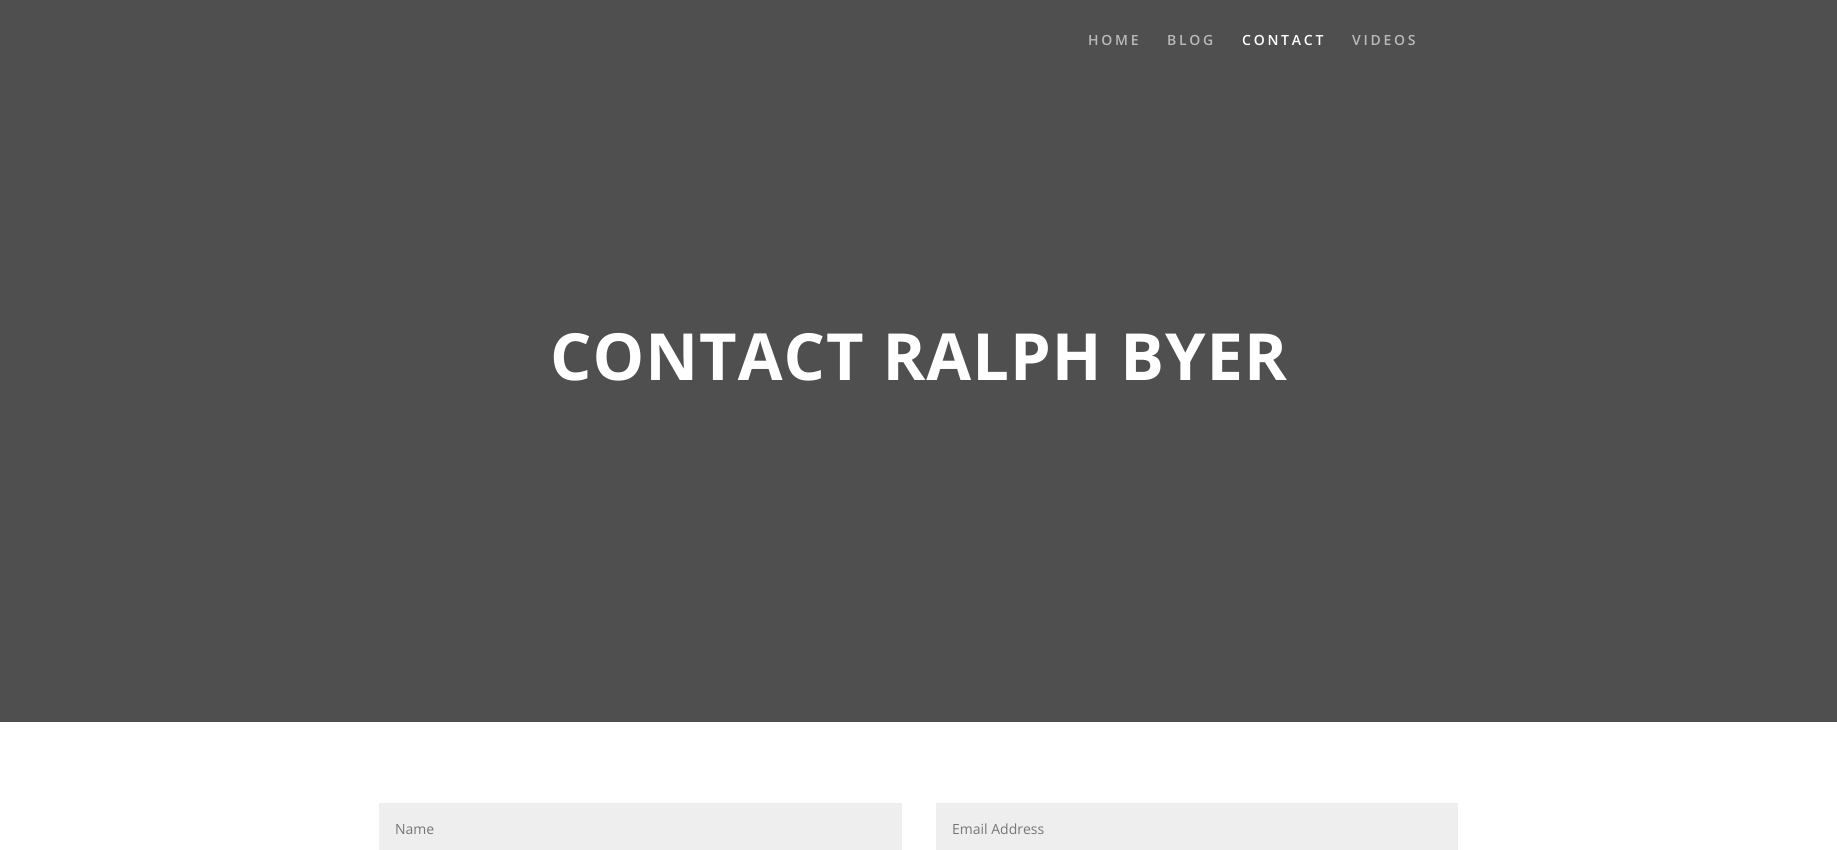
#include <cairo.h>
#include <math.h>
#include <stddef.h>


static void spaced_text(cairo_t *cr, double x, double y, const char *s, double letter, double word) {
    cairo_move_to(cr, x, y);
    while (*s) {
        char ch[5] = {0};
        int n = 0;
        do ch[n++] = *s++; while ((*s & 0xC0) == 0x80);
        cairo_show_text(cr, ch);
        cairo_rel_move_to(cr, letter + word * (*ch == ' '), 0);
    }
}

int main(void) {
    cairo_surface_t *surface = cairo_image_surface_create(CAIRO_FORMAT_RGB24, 1837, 850);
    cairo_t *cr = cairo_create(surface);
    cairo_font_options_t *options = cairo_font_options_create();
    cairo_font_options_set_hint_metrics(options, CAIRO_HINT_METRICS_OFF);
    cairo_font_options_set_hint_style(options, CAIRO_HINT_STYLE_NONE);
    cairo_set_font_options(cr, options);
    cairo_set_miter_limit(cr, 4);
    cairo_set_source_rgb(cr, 1, 1, 1);
    cairo_paint(cr);
    cairo_set_source_rgb(cr, 0.31, 0.31, 0.31);
    cairo_rectangle(cr, 0, 0, 1837, 722);
    cairo_fill(cr);
    cairo_select_font_face(cr, "Open Sans SemiBold", CAIRO_FONT_SLANT_NORMAL, CAIRO_FONT_WEIGHT_NORMAL);
    cairo_set_font_size(cr, 14);
    cairo_set_source_rgb(cr, 0.725, 0.725, 0.725);
    spaced_text(cr, 1088, 45, "HOME", 2.75, 0);
    spaced_text(cr, 1167, 45, "BLOG", 2.75, 0);
    cairo_set_source_rgb(cr, 1, 1, 1);
    spaced_text(cr, 1242, 45, "CONTACT", 2.75, 0);
    cairo_set_source_rgb(cr, 0.725, 0.725, 0.725);
    spaced_text(cr, 1352, 45, "VIDEOS", 2.75, 0);
    cairo_select_font_face(cr, "Open Sans", CAIRO_FONT_SLANT_NORMAL, CAIRO_FONT_WEIGHT_BOLD);
    cairo_set_font_size(cr, 65);
    cairo_set_source_rgb(cr, 1, 1, 1);
    spaced_text(cr, 550, 380, "CONTACT RALPH BYER", 1, 0);
    cairo_set_source_rgb(cr, 0.933, 0.933, 0.933);
    cairo_rectangle(cr, 379, 803, 523, 47);
    cairo_fill(cr);
    cairo_select_font_face(cr, "Open Sans", CAIRO_FONT_SLANT_NORMAL, CAIRO_FONT_WEIGHT_NORMAL);
    cairo_set_font_size(cr, 14);
    cairo_set_source_rgb(cr, 0.459, 0.459, 0.459);
    cairo_move_to(cr, 395, 834);
    cairo_show_text(cr, "Name");
    cairo_set_source_rgb(cr, 0.933, 0.933, 0.933);
    cairo_rectangle(cr, 936, 803, 522, 47);
    cairo_fill(cr);
    cairo_set_source_rgb(cr, 0.459, 0.459, 0.459);
    cairo_move_to(cr, 952, 834);
    cairo_show_text(cr, "Email Address");
    cairo_surface_write_to_png(surface, "page.png");
    cairo_font_options_destroy(options);
    cairo_destroy(cr);
    cairo_surface_destroy(surface);
    return 0;
}
